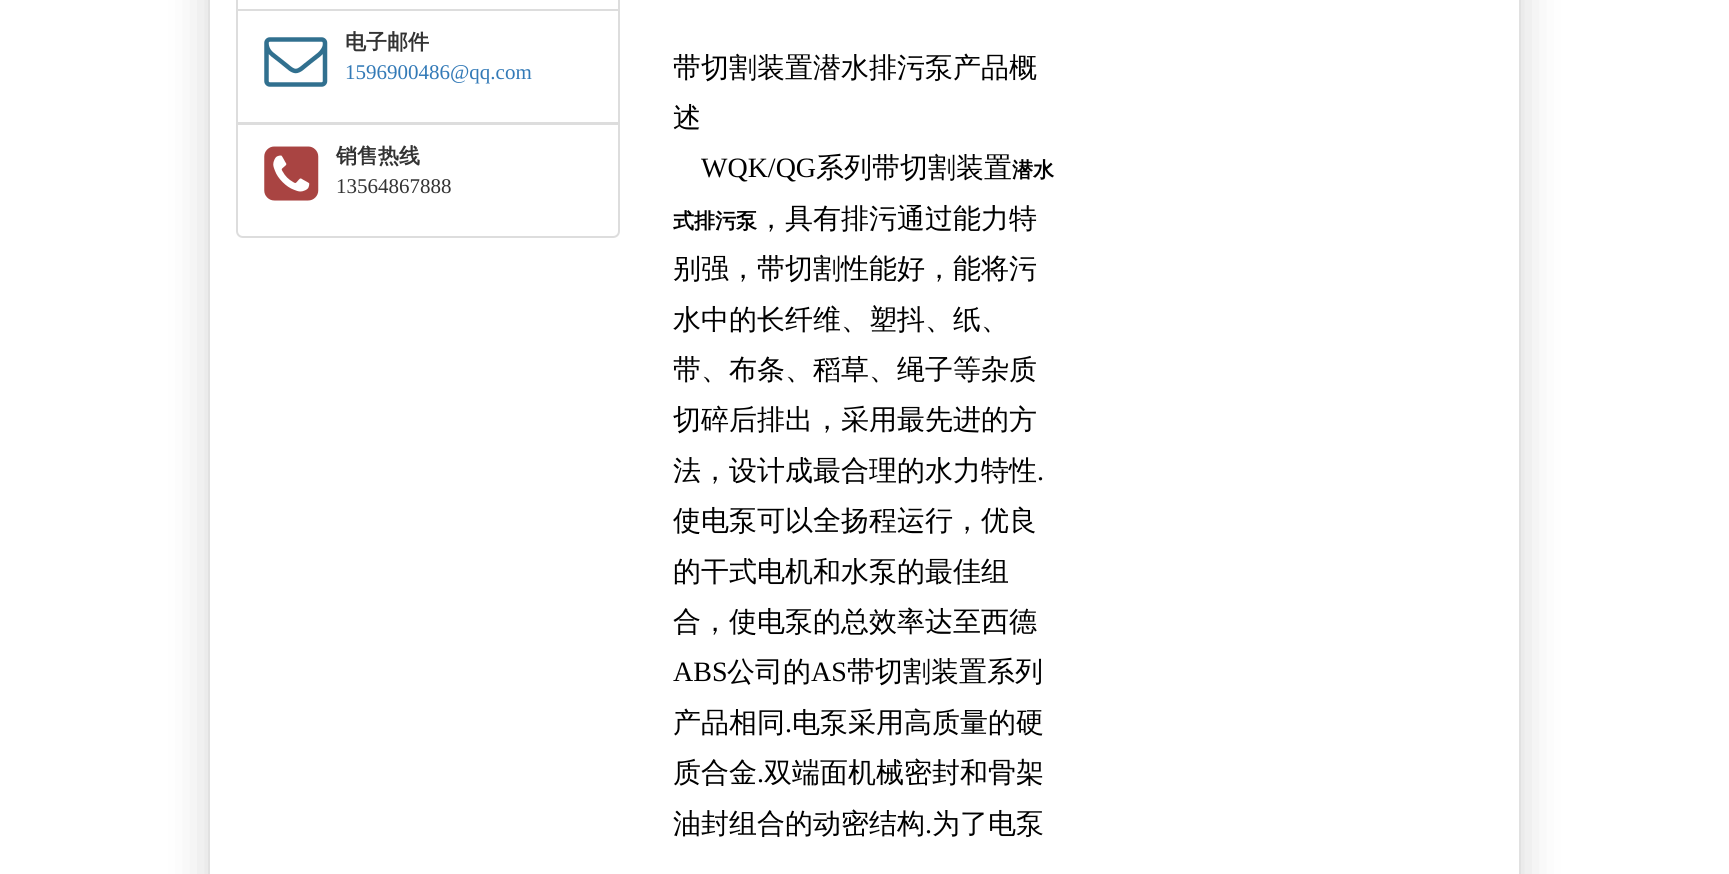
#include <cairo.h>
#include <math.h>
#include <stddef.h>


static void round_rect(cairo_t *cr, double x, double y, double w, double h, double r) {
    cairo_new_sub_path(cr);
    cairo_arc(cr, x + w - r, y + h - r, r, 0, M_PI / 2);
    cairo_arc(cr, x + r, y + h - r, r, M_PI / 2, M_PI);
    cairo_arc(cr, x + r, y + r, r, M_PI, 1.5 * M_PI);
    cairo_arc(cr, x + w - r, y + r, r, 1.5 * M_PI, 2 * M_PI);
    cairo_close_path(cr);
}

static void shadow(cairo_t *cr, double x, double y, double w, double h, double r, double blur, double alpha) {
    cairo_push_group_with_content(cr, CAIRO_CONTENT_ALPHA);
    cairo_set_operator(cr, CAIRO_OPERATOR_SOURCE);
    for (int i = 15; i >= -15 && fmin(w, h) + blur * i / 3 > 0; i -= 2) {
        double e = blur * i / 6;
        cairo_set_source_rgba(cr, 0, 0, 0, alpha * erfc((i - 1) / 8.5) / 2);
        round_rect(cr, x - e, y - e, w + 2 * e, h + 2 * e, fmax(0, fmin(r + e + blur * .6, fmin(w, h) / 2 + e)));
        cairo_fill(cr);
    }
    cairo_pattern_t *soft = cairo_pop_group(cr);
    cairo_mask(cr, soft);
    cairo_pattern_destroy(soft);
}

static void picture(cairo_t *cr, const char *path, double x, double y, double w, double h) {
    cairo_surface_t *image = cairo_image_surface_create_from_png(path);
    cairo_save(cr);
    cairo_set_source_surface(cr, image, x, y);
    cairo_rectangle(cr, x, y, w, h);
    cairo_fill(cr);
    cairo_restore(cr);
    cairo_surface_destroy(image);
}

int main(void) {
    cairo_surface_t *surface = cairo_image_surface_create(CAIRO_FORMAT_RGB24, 1729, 874);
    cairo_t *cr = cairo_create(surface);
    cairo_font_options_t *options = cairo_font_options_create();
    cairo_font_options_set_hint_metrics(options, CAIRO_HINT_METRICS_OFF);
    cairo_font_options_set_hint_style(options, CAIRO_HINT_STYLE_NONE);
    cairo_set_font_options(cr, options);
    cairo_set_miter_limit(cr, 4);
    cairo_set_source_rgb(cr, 1, 1, 1);
    cairo_paint(cr);
    cairo_set_source_rgb(cr, 0, 0, 0);
    shadow(cr, 208, -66, 1313, 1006, 0, 22, 0.16);
    cairo_set_source_rgb(cr, 1, 1, 1);
    cairo_rectangle(cr, 210, 0, 1309, 874);
    cairo_fill(cr);
    cairo_set_source_rgb(cr, 0.882, 0.882, 0.882);
    cairo_rectangle(cr, 1519, 0, 2, 874);
    cairo_fill(cr);
    cairo_rectangle(cr, 208, 0, 2, 874);
    cairo_fill(cr);
    cairo_rectangle(cr, 237, -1, 382, 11);
    cairo_set_source_rgb(cr, 0.867, 0.867, 0.867);
    cairo_stroke(cr);
    cairo_rectangle(cr, 237, 10, 382, 113);
    cairo_stroke(cr);
    picture(cr, "img1.png", 264, 37, 64, 50);
    cairo_select_font_face(cr, "WenQuanYi Zen Hei", CAIRO_FONT_SLANT_NORMAL, CAIRO_FONT_WEIGHT_BOLD);
    cairo_set_font_size(cr, 21);
    cairo_set_source_rgb(cr, 0.2, 0.2, 0.2);
    cairo_move_to(cr, 345, 49);
    cairo_show_text(cr, "电子邮件");
    cairo_select_font_face(cr, "Liberation Serif", CAIRO_FONT_SLANT_NORMAL, CAIRO_FONT_WEIGHT_NORMAL);
    cairo_set_source_rgb(cr, 0.2, 0.478, 0.718);
    cairo_move_to(cr, 345, 79);
    cairo_show_text(cr, "1596900486@qq.com");
    cairo_set_source_rgb(cr, 1, 1, 1);
    cairo_new_path(cr);
    cairo_move_to(cr, 237, 124);
    cairo_line_to(cr, 619, 124);
    cairo_line_to(cr, 619, 231);
    cairo_curve_to(cr, 619, 234.5, 616.5, 237, 613, 237);
    cairo_line_to(cr, 243, 237);
    cairo_curve_to(cr, 239.5, 237, 237, 234.5, 237, 231);
    cairo_close_path(cr);
    cairo_fill_preserve(cr);
    cairo_set_source_rgb(cr, 0.867, 0.867, 0.867);
    cairo_stroke(cr);
    picture(cr, "img2.png", 264, 146, 55, 55);
    cairo_select_font_face(cr, "WenQuanYi Zen Hei", CAIRO_FONT_SLANT_NORMAL, CAIRO_FONT_WEIGHT_BOLD);
    cairo_set_source_rgb(cr, 0.2, 0.2, 0.2);
    cairo_move_to(cr, 336, 163);
    cairo_show_text(cr, "销售热线");
    cairo_select_font_face(cr, "Liberation Serif", CAIRO_FONT_SLANT_NORMAL, CAIRO_FONT_WEIGHT_NORMAL);
    cairo_move_to(cr, 336, 193);
    cairo_show_text(cr, "13564867888");
    cairo_select_font_face(cr, "WenQuanYi Zen Hei Medium", CAIRO_FONT_SLANT_NORMAL, CAIRO_FONT_WEIGHT_NORMAL);
    cairo_set_font_size(cr, 28);
    cairo_set_source_rgb(cr, 0, 0, 0);
    cairo_move_to(cr, 673, 77);
    cairo_show_text(cr, "带切割装置潜水排污泵产品概");
    cairo_move_to(cr, 673, 127);
    cairo_show_text(cr, "述");
    cairo_select_font_face(cr, "Liberation Serif", CAIRO_FONT_SLANT_NORMAL, CAIRO_FONT_WEIGHT_NORMAL);
    cairo_move_to(cr, 701, 177);
    cairo_show_text(cr, "WQK/QG");
    cairo_select_font_face(cr, "WenQuanYi Zen Hei Medium", CAIRO_FONT_SLANT_NORMAL, CAIRO_FONT_WEIGHT_NORMAL);
    cairo_move_to(cr, 816, 177);
    cairo_show_text(cr, "系列带切割装置");
    cairo_select_font_face(cr, "WenQuanYi Zen Hei", CAIRO_FONT_SLANT_NORMAL, CAIRO_FONT_WEIGHT_BOLD);
    cairo_set_font_size(cr, 21);
    cairo_move_to(cr, 1012, 177);
    cairo_show_text(cr, "潜水");
    cairo_move_to(cr, 673, 228);
    cairo_show_text(cr, "式排污泵");
    cairo_select_font_face(cr, "WenQuanYi Zen Hei Medium", CAIRO_FONT_SLANT_NORMAL, CAIRO_FONT_WEIGHT_NORMAL);
    cairo_set_font_size(cr, 28);
    cairo_move_to(cr, 757, 228);
    cairo_show_text(cr, "，具有排污通过能力特");
    cairo_move_to(cr, 673, 278);
    cairo_show_text(cr, "别强，带切割性能好，能将污");
    cairo_move_to(cr, 673, 329);
    cairo_show_text(cr, "水中的长纤维、塑抖、纸、");
    cairo_move_to(cr, 673, 379);
    cairo_show_text(cr, "带、布条、稻草、绳子等杂质");
    cairo_move_to(cr, 673, 429);
    cairo_show_text(cr, "切碎后排出，采用最先进的方");
    cairo_move_to(cr, 673, 480);
    cairo_show_text(cr, "法，设计成最合理的水力特性");
    cairo_select_font_face(cr, "Liberation Serif", CAIRO_FONT_SLANT_NORMAL, CAIRO_FONT_WEIGHT_NORMAL);
    cairo_move_to(cr, 1037, 480);
    cairo_show_text(cr, ".");
    cairo_select_font_face(cr, "WenQuanYi Zen Hei Medium", CAIRO_FONT_SLANT_NORMAL, CAIRO_FONT_WEIGHT_NORMAL);
    cairo_move_to(cr, 673, 530);
    cairo_show_text(cr, "使电泵可以全扬程运行，优良");
    cairo_move_to(cr, 673, 581);
    cairo_show_text(cr, "的干式电机和水泵的最佳组");
    cairo_move_to(cr, 673, 631);
    cairo_show_text(cr, "合，使电泵的总效率达至西德");
    cairo_select_font_face(cr, "Liberation Serif", CAIRO_FONT_SLANT_NORMAL, CAIRO_FONT_WEIGHT_NORMAL);
    cairo_move_to(cr, 673, 681);
    cairo_show_text(cr, "ABS");
    cairo_select_font_face(cr, "WenQuanYi Zen Hei Medium", CAIRO_FONT_SLANT_NORMAL, CAIRO_FONT_WEIGHT_NORMAL);
    cairo_move_to(cr, 727, 681);
    cairo_show_text(cr, "公司的");
    cairo_select_font_face(cr, "Liberation Serif", CAIRO_FONT_SLANT_NORMAL, CAIRO_FONT_WEIGHT_NORMAL);
    cairo_move_to(cr, 811, 681);
    cairo_show_text(cr, "AS");
    cairo_select_font_face(cr, "WenQuanYi Zen Hei Medium", CAIRO_FONT_SLANT_NORMAL, CAIRO_FONT_WEIGHT_NORMAL);
    cairo_move_to(cr, 847, 681);
    cairo_show_text(cr, "带切割装置系列");
    cairo_move_to(cr, 673, 732);
    cairo_show_text(cr, "产品相同");
    cairo_select_font_face(cr, "Liberation Serif", CAIRO_FONT_SLANT_NORMAL, CAIRO_FONT_WEIGHT_NORMAL);
    cairo_move_to(cr, 785, 732);
    cairo_show_text(cr, ".");
    cairo_select_font_face(cr, "WenQuanYi Zen Hei Medium", CAIRO_FONT_SLANT_NORMAL, CAIRO_FONT_WEIGHT_NORMAL);
    cairo_move_to(cr, 792, 732);
    cairo_show_text(cr, "电泵采用高质量的硬");
    cairo_move_to(cr, 673, 782);
    cairo_show_text(cr, "质合金");
    cairo_select_font_face(cr, "Liberation Serif", CAIRO_FONT_SLANT_NORMAL, CAIRO_FONT_WEIGHT_NORMAL);
    cairo_move_to(cr, 757, 782);
    cairo_show_text(cr, ".");
    cairo_select_font_face(cr, "WenQuanYi Zen Hei Medium", CAIRO_FONT_SLANT_NORMAL, CAIRO_FONT_WEIGHT_NORMAL);
    cairo_move_to(cr, 764, 782);
    cairo_show_text(cr, "双端面机械密封和骨架");
    cairo_move_to(cr, 673, 833);
    cairo_show_text(cr, "油封组合的动密结构");
    cairo_select_font_face(cr, "Liberation Serif", CAIRO_FONT_SLANT_NORMAL, CAIRO_FONT_WEIGHT_NORMAL);
    cairo_move_to(cr, 925, 833);
    cairo_show_text(cr, ".");
    cairo_select_font_face(cr, "WenQuanYi Zen Hei Medium", CAIRO_FONT_SLANT_NORMAL, CAIRO_FONT_WEIGHT_NORMAL);
    cairo_move_to(cr, 932, 833);
    cairo_show_text(cr, "为了电泵");
    cairo_surface_write_to_png(surface, "page.png");
    cairo_font_options_destroy(options);
    cairo_destroy(cr);
    cairo_surface_destroy(surface);
    return 0;
}
